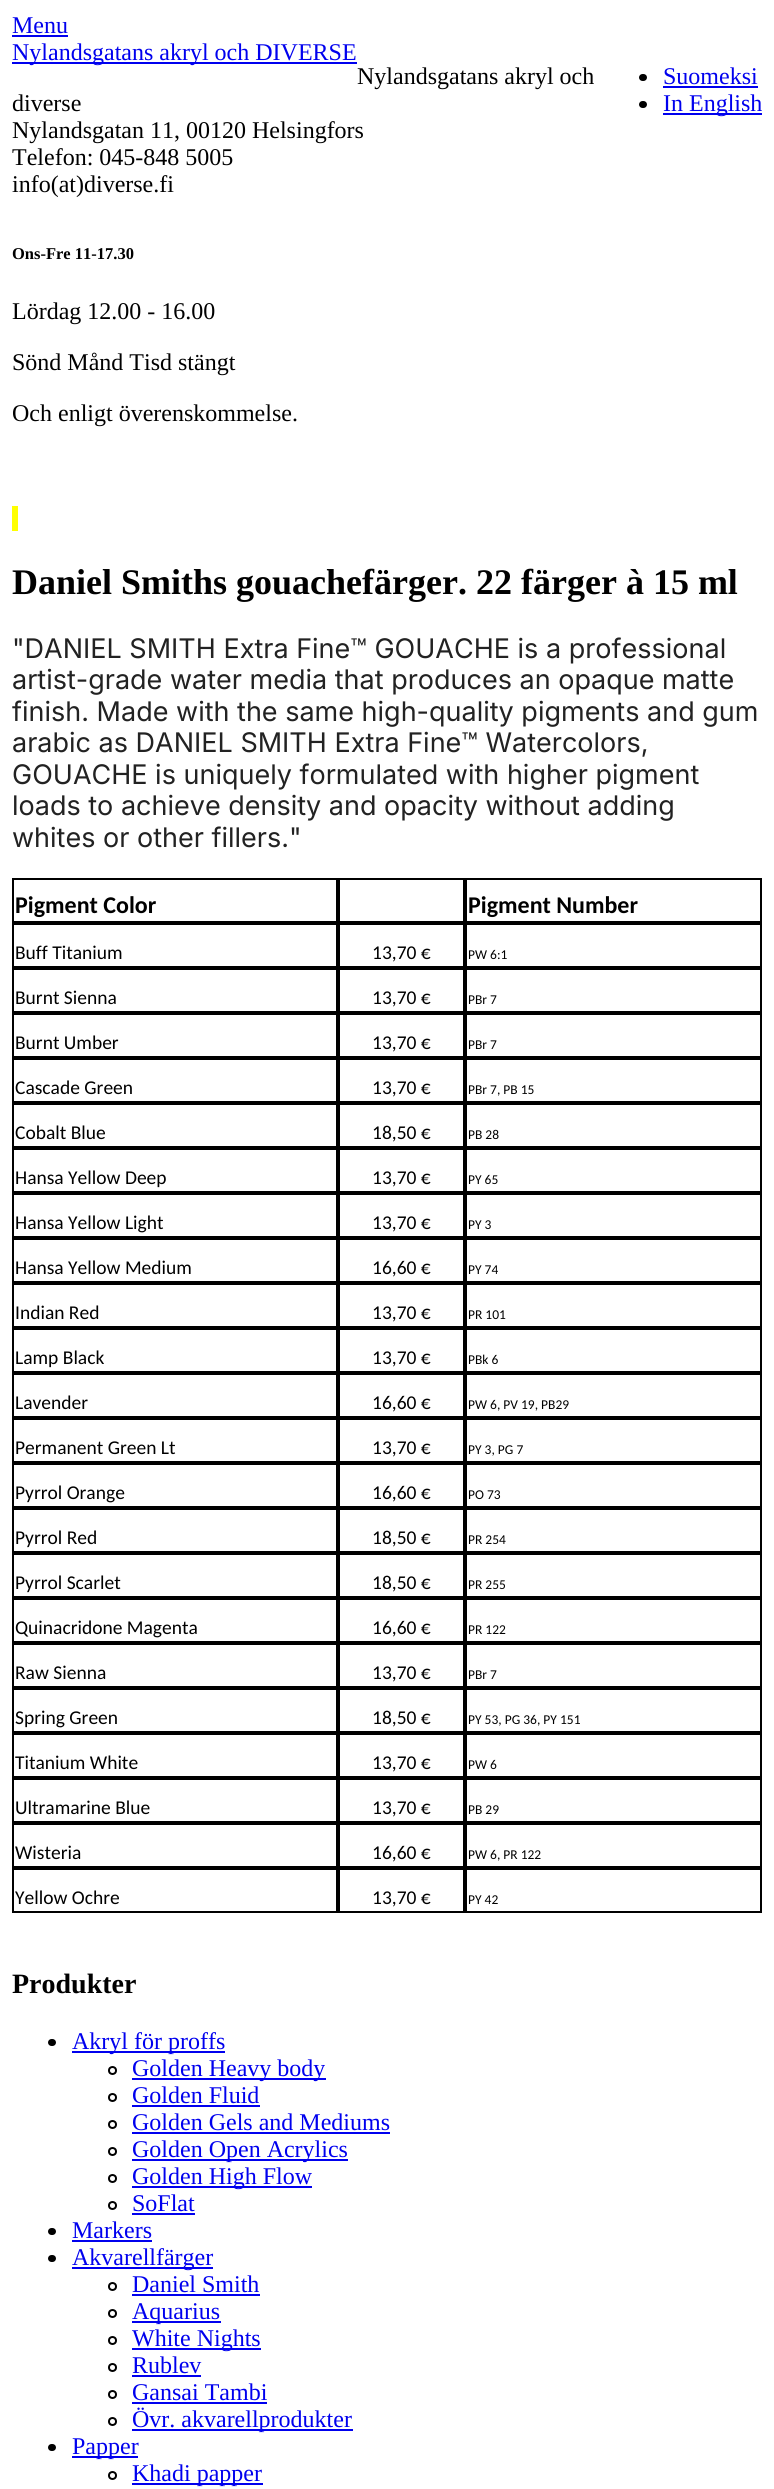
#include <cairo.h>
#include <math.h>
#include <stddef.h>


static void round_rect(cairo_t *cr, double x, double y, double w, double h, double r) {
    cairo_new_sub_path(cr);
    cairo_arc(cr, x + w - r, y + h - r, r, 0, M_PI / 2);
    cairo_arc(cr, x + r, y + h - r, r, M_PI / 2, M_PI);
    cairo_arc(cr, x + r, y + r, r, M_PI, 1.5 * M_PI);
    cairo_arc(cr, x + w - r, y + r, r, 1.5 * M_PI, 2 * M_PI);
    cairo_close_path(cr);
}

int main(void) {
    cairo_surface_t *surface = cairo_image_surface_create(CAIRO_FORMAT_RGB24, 774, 2489);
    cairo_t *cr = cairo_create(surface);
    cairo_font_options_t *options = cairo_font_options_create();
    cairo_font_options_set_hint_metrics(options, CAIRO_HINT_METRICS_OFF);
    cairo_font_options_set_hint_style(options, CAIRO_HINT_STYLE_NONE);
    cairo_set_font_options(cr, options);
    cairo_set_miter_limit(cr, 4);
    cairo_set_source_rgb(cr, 1, 1, 1);
    cairo_paint(cr);
    cairo_select_font_face(cr, "Liberation Serif", CAIRO_FONT_SLANT_NORMAL, CAIRO_FONT_WEIGHT_NORMAL);
    cairo_set_font_size(cr, 24);
    cairo_set_source_rgb(cr, 0, 0, 0.933);
    cairo_move_to(cr, 12, 33);
    cairo_show_text(cr, "Menu");
    cairo_rectangle(cr, 12, 35, 56, 2);
    cairo_fill(cr);
    cairo_rectangle(cr, 12, 62, 345, 2);
    cairo_fill(cr);
    cairo_move_to(cr, 12, 60);
    cairo_show_text(cr, "Nylandsgatans akryl och DIVERSE");
    cairo_set_source_rgb(cr, 0, 0, 0);
    round_rect(cr, 639, 74, 8, 7, 3.5);
    cairo_fill(cr);
    cairo_set_source_rgb(cr, 0, 0, 0.933);
    cairo_move_to(cr, 663, 84);
    cairo_show_text(cr, "Suomeksi");
    cairo_rectangle(cr, 663, 86, 95, 2);
    cairo_fill(cr);
    cairo_set_source_rgb(cr, 0, 0, 0);
    round_rect(cr, 639, 101, 8, 7, 3.5);
    cairo_fill(cr);
    cairo_set_source_rgb(cr, 0, 0, 0.933);
    cairo_rectangle(cr, 663, 113, 99, 2);
    cairo_fill(cr);
    cairo_move_to(cr, 663, 111);
    cairo_show_text(cr, "In English");
    cairo_set_source_rgb(cr, 0, 0, 0);
    cairo_move_to(cr, 357, 84);
    cairo_show_text(cr, "Nylandsgatans akryl och");
    cairo_move_to(cr, 12, 111);
    cairo_show_text(cr, "diverse");
    cairo_move_to(cr, 12, 138);
    cairo_show_text(cr, "Nylandsgatan 11, 00120 Helsingfors");
    cairo_move_to(cr, 12, 165);
    cairo_show_text(cr, "Telefon: 045-848 5005");
    cairo_move_to(cr, 12, 192);
    cairo_show_text(cr, "info(at)diverse.fi");
    cairo_select_font_face(cr, "Liberation Serif", CAIRO_FONT_SLANT_NORMAL, CAIRO_FONT_WEIGHT_BOLD);
    cairo_set_font_size(cr, 16.5);
    cairo_move_to(cr, 12, 259);
    cairo_show_text(cr, "Ons-Fre 11-17.30");
    cairo_select_font_face(cr, "Liberation Serif", CAIRO_FONT_SLANT_NORMAL, CAIRO_FONT_WEIGHT_NORMAL);
    cairo_set_font_size(cr, 24);
    cairo_move_to(cr, 12, 319);
    cairo_show_text(cr, "Lördag 12.00 - 16.00");
    cairo_move_to(cr, 12, 370);
    cairo_show_text(cr, "Sönd Månd Tisd stängt");
    cairo_move_to(cr, 12, 421);
    cairo_show_text(cr, "Och enligt överenskommelse.");
    cairo_set_source_rgb(cr, 1, 1, 0);
    cairo_rectangle(cr, 12, 506, 6, 25);
    cairo_fill(cr);
    cairo_select_font_face(cr, "Liberation Serif", CAIRO_FONT_SLANT_NORMAL, CAIRO_FONT_WEIGHT_BOLD);
    cairo_set_font_size(cr, 36);
    cairo_set_source_rgb(cr, 0, 0, 0);
    cairo_move_to(cr, 12, 594);
    cairo_show_text(cr, "Daniel Smiths gouachefärger. 22 färger à 15 ml");
    cairo_select_font_face(cr, "Inter", CAIRO_FONT_SLANT_NORMAL, CAIRO_FONT_WEIGHT_NORMAL);
    cairo_set_font_size(cr, 27);
    cairo_set_source_rgb(cr, 0.133, 0.133, 0.133);
    cairo_move_to(cr, 12, 658);
    cairo_show_text(cr, "\"DANIEL SMITH Extra Fine™ GOUACHE is a professional");
    cairo_move_to(cr, 12, 689);
    cairo_show_text(cr, "artist-grade water media that produces an opaque matte");
    cairo_move_to(cr, 12, 721);
    cairo_show_text(cr, "finish. Made with the same high-quality pigments and gum");
    cairo_move_to(cr, 12, 752);
    cairo_show_text(cr, "arabic as DANIEL SMITH Extra Fine™ Watercolors,");
    cairo_move_to(cr, 12, 784);
    cairo_show_text(cr, "GOUACHE is uniquely formulated with higher pigment");
    cairo_move_to(cr, 12, 815);
    cairo_show_text(cr, "loads to achieve density and opacity without adding");
    cairo_move_to(cr, 12, 847);
    cairo_show_text(cr, "whites or other fillers.\"");
    cairo_rectangle(cr, 13, 879, 324, 43);
    cairo_set_source_rgb(cr, 0, 0, 0);
    cairo_stroke(cr);
    cairo_select_font_face(cr, "Carlito", CAIRO_FONT_SLANT_NORMAL, CAIRO_FONT_WEIGHT_BOLD);
    cairo_set_font_size(cr, 24);
    cairo_move_to(cr, 15, 913);
    cairo_show_text(cr, "Pigment Color");
    cairo_rectangle(cr, 339, 879, 125, 43);
    cairo_stroke(cr);
    cairo_rectangle(cr, 466, 879, 295, 43);
    cairo_stroke(cr);
    cairo_move_to(cr, 468, 913);
    cairo_show_text(cr, "Pigment Number");
    cairo_rectangle(cr, 13, 924, 324, 43);
    cairo_stroke(cr);
    cairo_select_font_face(cr, "Carlito", CAIRO_FONT_SLANT_NORMAL, CAIRO_FONT_WEIGHT_NORMAL);
    cairo_set_font_size(cr, 19.5);
    cairo_move_to(cr, 15, 959);
    cairo_show_text(cr, "Buff Titanium");
    cairo_rectangle(cr, 339, 924, 125, 43);
    cairo_stroke(cr);
    cairo_move_to(cr, 372, 959);
    cairo_show_text(cr, "13,70 €");
    cairo_rectangle(cr, 466, 924, 295, 43);
    cairo_stroke(cr);
    cairo_set_font_size(cr, 13.5);
    cairo_move_to(cr, 468, 959);
    cairo_show_text(cr, "PW 6:1");
    cairo_rectangle(cr, 13, 969, 324, 43);
    cairo_stroke(cr);
    cairo_set_font_size(cr, 19.5);
    cairo_move_to(cr, 15, 1004);
    cairo_show_text(cr, "Burnt Sienna");
    cairo_rectangle(cr, 339, 969, 125, 43);
    cairo_stroke(cr);
    cairo_move_to(cr, 372, 1004);
    cairo_show_text(cr, "13,70 €");
    cairo_rectangle(cr, 466, 969, 295, 43);
    cairo_stroke(cr);
    cairo_set_font_size(cr, 13.5);
    cairo_move_to(cr, 468, 1004);
    cairo_show_text(cr, "PBr 7");
    cairo_rectangle(cr, 13, 1014, 324, 43);
    cairo_stroke(cr);
    cairo_set_font_size(cr, 19.5);
    cairo_move_to(cr, 15, 1049);
    cairo_show_text(cr, "Burnt Umber");
    cairo_rectangle(cr, 339, 1014, 125, 43);
    cairo_stroke(cr);
    cairo_move_to(cr, 372, 1049);
    cairo_show_text(cr, "13,70 €");
    cairo_rectangle(cr, 466, 1014, 295, 43);
    cairo_stroke(cr);
    cairo_set_font_size(cr, 13.5);
    cairo_move_to(cr, 468, 1049);
    cairo_show_text(cr, "PBr 7");
    cairo_rectangle(cr, 13, 1059, 324, 43);
    cairo_stroke(cr);
    cairo_set_font_size(cr, 19.5);
    cairo_move_to(cr, 15, 1094);
    cairo_show_text(cr, "Cascade Green");
    cairo_rectangle(cr, 339, 1059, 125, 43);
    cairo_stroke(cr);
    cairo_move_to(cr, 372, 1094);
    cairo_show_text(cr, "13,70 €");
    cairo_rectangle(cr, 466, 1059, 295, 43);
    cairo_stroke(cr);
    cairo_set_font_size(cr, 13.5);
    cairo_move_to(cr, 468, 1094);
    cairo_show_text(cr, "PBr 7, PB 15");
    cairo_rectangle(cr, 13, 1104, 324, 43);
    cairo_stroke(cr);
    cairo_set_font_size(cr, 19.5);
    cairo_move_to(cr, 15, 1139);
    cairo_show_text(cr, "Cobalt Blue");
    cairo_rectangle(cr, 339, 1104, 125, 43);
    cairo_stroke(cr);
    cairo_move_to(cr, 372, 1139);
    cairo_show_text(cr, "18,50 €");
    cairo_rectangle(cr, 466, 1104, 295, 43);
    cairo_stroke(cr);
    cairo_set_font_size(cr, 13.5);
    cairo_move_to(cr, 468, 1139);
    cairo_show_text(cr, "PB 28");
    cairo_rectangle(cr, 13, 1149, 324, 43);
    cairo_stroke(cr);
    cairo_set_font_size(cr, 19.5);
    cairo_move_to(cr, 15, 1184);
    cairo_show_text(cr, "Hansa Yellow Deep");
    cairo_rectangle(cr, 339, 1149, 125, 43);
    cairo_stroke(cr);
    cairo_move_to(cr, 372, 1184);
    cairo_show_text(cr, "13,70 €");
    cairo_rectangle(cr, 466, 1149, 295, 43);
    cairo_stroke(cr);
    cairo_set_font_size(cr, 13.5);
    cairo_move_to(cr, 468, 1184);
    cairo_show_text(cr, "PY 65");
    cairo_rectangle(cr, 13, 1194, 324, 43);
    cairo_stroke(cr);
    cairo_set_font_size(cr, 19.5);
    cairo_move_to(cr, 15, 1229);
    cairo_show_text(cr, "Hansa Yellow Light");
    cairo_rectangle(cr, 339, 1194, 125, 43);
    cairo_stroke(cr);
    cairo_move_to(cr, 372, 1229);
    cairo_show_text(cr, "13,70 €");
    cairo_rectangle(cr, 466, 1194, 295, 43);
    cairo_stroke(cr);
    cairo_set_font_size(cr, 13.5);
    cairo_move_to(cr, 468, 1229);
    cairo_show_text(cr, "PY 3");
    cairo_rectangle(cr, 13, 1239, 324, 43);
    cairo_stroke(cr);
    cairo_set_font_size(cr, 19.5);
    cairo_move_to(cr, 15, 1274);
    cairo_show_text(cr, "Hansa Yellow Medium");
    cairo_rectangle(cr, 339, 1239, 125, 43);
    cairo_stroke(cr);
    cairo_move_to(cr, 372, 1274);
    cairo_show_text(cr, "16,60 €");
    cairo_rectangle(cr, 466, 1239, 295, 43);
    cairo_stroke(cr);
    cairo_set_font_size(cr, 13.5);
    cairo_move_to(cr, 468, 1274);
    cairo_show_text(cr, "PY 74");
    cairo_rectangle(cr, 13, 1284, 324, 43);
    cairo_stroke(cr);
    cairo_set_font_size(cr, 19.5);
    cairo_move_to(cr, 15, 1319);
    cairo_show_text(cr, "Indian Red");
    cairo_rectangle(cr, 339, 1284, 125, 43);
    cairo_stroke(cr);
    cairo_move_to(cr, 372, 1319);
    cairo_show_text(cr, "13,70 €");
    cairo_rectangle(cr, 466, 1284, 295, 43);
    cairo_stroke(cr);
    cairo_set_font_size(cr, 13.5);
    cairo_move_to(cr, 468, 1319);
    cairo_show_text(cr, "PR 101");
    cairo_rectangle(cr, 13, 1329, 324, 43);
    cairo_stroke(cr);
    cairo_set_font_size(cr, 19.5);
    cairo_move_to(cr, 15, 1364);
    cairo_show_text(cr, "Lamp Black");
    cairo_rectangle(cr, 339, 1329, 125, 43);
    cairo_stroke(cr);
    cairo_move_to(cr, 372, 1364);
    cairo_show_text(cr, "13,70 €");
    cairo_rectangle(cr, 466, 1329, 295, 43);
    cairo_stroke(cr);
    cairo_set_font_size(cr, 13.5);
    cairo_move_to(cr, 468, 1364);
    cairo_show_text(cr, "PBk 6");
    cairo_rectangle(cr, 13, 1374, 324, 43);
    cairo_stroke(cr);
    cairo_set_font_size(cr, 19.5);
    cairo_move_to(cr, 15, 1409);
    cairo_show_text(cr, "Lavender");
    cairo_rectangle(cr, 339, 1374, 125, 43);
    cairo_stroke(cr);
    cairo_move_to(cr, 372, 1409);
    cairo_show_text(cr, "16,60 €");
    cairo_rectangle(cr, 466, 1374, 295, 43);
    cairo_stroke(cr);
    cairo_set_font_size(cr, 13.5);
    cairo_move_to(cr, 468, 1409);
    cairo_show_text(cr, "PW 6, PV 19, PB29");
    cairo_rectangle(cr, 13, 1419, 324, 43);
    cairo_stroke(cr);
    cairo_set_font_size(cr, 19.5);
    cairo_move_to(cr, 15, 1454);
    cairo_show_text(cr, "Permanent Green Lt");
    cairo_rectangle(cr, 339, 1419, 125, 43);
    cairo_stroke(cr);
    cairo_move_to(cr, 372, 1454);
    cairo_show_text(cr, "13,70 €");
    cairo_rectangle(cr, 466, 1419, 295, 43);
    cairo_stroke(cr);
    cairo_set_font_size(cr, 13.5);
    cairo_move_to(cr, 468, 1454);
    cairo_show_text(cr, "PY 3, PG 7");
    cairo_rectangle(cr, 13, 1464, 324, 43);
    cairo_stroke(cr);
    cairo_set_font_size(cr, 19.5);
    cairo_move_to(cr, 15, 1499);
    cairo_show_text(cr, "Pyrrol Orange");
    cairo_rectangle(cr, 339, 1464, 125, 43);
    cairo_stroke(cr);
    cairo_move_to(cr, 372, 1499);
    cairo_show_text(cr, "16,60 €");
    cairo_rectangle(cr, 466, 1464, 295, 43);
    cairo_stroke(cr);
    cairo_set_font_size(cr, 13.5);
    cairo_move_to(cr, 468, 1499);
    cairo_show_text(cr, "PO 73");
    cairo_rectangle(cr, 13, 1509, 324, 43);
    cairo_stroke(cr);
    cairo_set_font_size(cr, 19.5);
    cairo_move_to(cr, 15, 1544);
    cairo_show_text(cr, "Pyrrol Red");
    cairo_rectangle(cr, 339, 1509, 125, 43);
    cairo_stroke(cr);
    cairo_move_to(cr, 372, 1544);
    cairo_show_text(cr, "18,50 €");
    cairo_rectangle(cr, 466, 1509, 295, 43);
    cairo_stroke(cr);
    cairo_set_font_size(cr, 13.5);
    cairo_move_to(cr, 468, 1544);
    cairo_show_text(cr, "PR 254");
    cairo_rectangle(cr, 13, 1554, 324, 43);
    cairo_stroke(cr);
    cairo_set_font_size(cr, 19.5);
    cairo_move_to(cr, 15, 1589);
    cairo_show_text(cr, "Pyrrol Scarlet");
    cairo_rectangle(cr, 339, 1554, 125, 43);
    cairo_stroke(cr);
    cairo_move_to(cr, 372, 1589);
    cairo_show_text(cr, "18,50 €");
    cairo_rectangle(cr, 466, 1554, 295, 43);
    cairo_stroke(cr);
    cairo_set_font_size(cr, 13.5);
    cairo_move_to(cr, 468, 1589);
    cairo_show_text(cr, "PR 255");
    cairo_rectangle(cr, 13, 1599, 324, 43);
    cairo_stroke(cr);
    cairo_set_font_size(cr, 19.5);
    cairo_move_to(cr, 15, 1634);
    cairo_show_text(cr, "Quinacridone Magenta");
    cairo_rectangle(cr, 339, 1599, 125, 43);
    cairo_stroke(cr);
    cairo_move_to(cr, 372, 1634);
    cairo_show_text(cr, "16,60 €");
    cairo_rectangle(cr, 466, 1599, 295, 43);
    cairo_stroke(cr);
    cairo_set_font_size(cr, 13.5);
    cairo_move_to(cr, 468, 1634);
    cairo_show_text(cr, "PR 122");
    cairo_rectangle(cr, 13, 1644, 324, 43);
    cairo_stroke(cr);
    cairo_set_font_size(cr, 19.5);
    cairo_move_to(cr, 15, 1679);
    cairo_show_text(cr, "Raw Sienna");
    cairo_rectangle(cr, 339, 1644, 125, 43);
    cairo_stroke(cr);
    cairo_move_to(cr, 372, 1679);
    cairo_show_text(cr, "13,70 €");
    cairo_rectangle(cr, 466, 1644, 295, 43);
    cairo_stroke(cr);
    cairo_set_font_size(cr, 13.5);
    cairo_move_to(cr, 468, 1679);
    cairo_show_text(cr, "PBr 7");
    cairo_rectangle(cr, 13, 1689, 324, 43);
    cairo_stroke(cr);
    cairo_set_font_size(cr, 19.5);
    cairo_move_to(cr, 15, 1724);
    cairo_show_text(cr, "Spring Green");
    cairo_rectangle(cr, 339, 1689, 125, 43);
    cairo_stroke(cr);
    cairo_move_to(cr, 372, 1724);
    cairo_show_text(cr, "18,50 €");
    cairo_rectangle(cr, 466, 1689, 295, 43);
    cairo_stroke(cr);
    cairo_set_font_size(cr, 13.5);
    cairo_move_to(cr, 468, 1724);
    cairo_show_text(cr, "PY 53, PG 36, PY 151");
    cairo_rectangle(cr, 13, 1734, 324, 43);
    cairo_stroke(cr);
    cairo_set_font_size(cr, 19.5);
    cairo_move_to(cr, 15, 1769);
    cairo_show_text(cr, "Titanium White");
    cairo_rectangle(cr, 339, 1734, 125, 43);
    cairo_stroke(cr);
    cairo_move_to(cr, 372, 1769);
    cairo_show_text(cr, "13,70 €");
    cairo_rectangle(cr, 466, 1734, 295, 43);
    cairo_stroke(cr);
    cairo_set_font_size(cr, 13.5);
    cairo_move_to(cr, 468, 1769);
    cairo_show_text(cr, "PW 6");
    cairo_rectangle(cr, 13, 1779, 324, 43);
    cairo_stroke(cr);
    cairo_set_font_size(cr, 19.5);
    cairo_move_to(cr, 15, 1814);
    cairo_show_text(cr, "Ultramarine Blue");
    cairo_rectangle(cr, 339, 1779, 125, 43);
    cairo_stroke(cr);
    cairo_move_to(cr, 372, 1814);
    cairo_show_text(cr, "13,70 €");
    cairo_rectangle(cr, 466, 1779, 295, 43);
    cairo_stroke(cr);
    cairo_set_font_size(cr, 13.5);
    cairo_move_to(cr, 468, 1814);
    cairo_show_text(cr, "PB 29");
    cairo_rectangle(cr, 13, 1824, 324, 43);
    cairo_stroke(cr);
    cairo_set_font_size(cr, 19.5);
    cairo_move_to(cr, 15, 1859);
    cairo_show_text(cr, "Wisteria");
    cairo_rectangle(cr, 339, 1824, 125, 43);
    cairo_stroke(cr);
    cairo_move_to(cr, 372, 1859);
    cairo_show_text(cr, "16,60 €");
    cairo_rectangle(cr, 466, 1824, 295, 43);
    cairo_stroke(cr);
    cairo_set_font_size(cr, 13.5);
    cairo_move_to(cr, 468, 1859);
    cairo_show_text(cr, "PW 6, PR 122");
    cairo_rectangle(cr, 13, 1869, 324, 43);
    cairo_stroke(cr);
    cairo_set_font_size(cr, 19.5);
    cairo_move_to(cr, 15, 1904);
    cairo_show_text(cr, "Yellow Ochre");
    cairo_rectangle(cr, 339, 1869, 125, 43);
    cairo_stroke(cr);
    cairo_move_to(cr, 372, 1904);
    cairo_show_text(cr, "13,70 €");
    cairo_rectangle(cr, 466, 1869, 295, 43);
    cairo_stroke(cr);
    cairo_set_font_size(cr, 13.5);
    cairo_move_to(cr, 468, 1904);
    cairo_show_text(cr, "PY 42");
    cairo_select_font_face(cr, "Liberation Serif", CAIRO_FONT_SLANT_NORMAL, CAIRO_FONT_WEIGHT_BOLD);
    cairo_set_font_size(cr, 28);
    cairo_move_to(cr, 12, 1993);
    cairo_show_text(cr, "Produkter");
    round_rect(cr, 48, 2039, 8, 7, 3.5);
    cairo_fill(cr);
    cairo_set_source_rgb(cr, 0, 0, 0.933);
    cairo_rectangle(cr, 72, 2051, 153, 2);
    cairo_fill(cr);
    cairo_select_font_face(cr, "Liberation Serif", CAIRO_FONT_SLANT_NORMAL, CAIRO_FONT_WEIGHT_NORMAL);
    cairo_set_font_size(cr, 24);
    cairo_move_to(cr, 72, 2049);
    cairo_show_text(cr, "Akryl för proffs");
    cairo_new_path(cr);
    cairo_arc(cr, 112.5, 2070.5, 3.5, 0, 2 * M_PI);
    cairo_set_source_rgb(cr, 0, 0, 0);
    cairo_stroke(cr);
    cairo_set_source_rgb(cr, 0, 0, 0.933);
    cairo_rectangle(cr, 132, 2078, 194, 2);
    cairo_fill(cr);
    cairo_move_to(cr, 132, 2076);
    cairo_show_text(cr, "Golden Heavy body");
    cairo_new_path(cr);
    cairo_arc(cr, 112.5, 2097.5, 3.5, 0, 2 * M_PI);
    cairo_set_source_rgb(cr, 0, 0, 0);
    cairo_stroke(cr);
    cairo_set_source_rgb(cr, 0, 0, 0.933);
    cairo_move_to(cr, 132, 2103);
    cairo_show_text(cr, "Golden Fluid");
    cairo_rectangle(cr, 132, 2105, 128, 2);
    cairo_fill(cr);
    cairo_arc(cr, 112.5, 2124.5, 3.5, 0, 2 * M_PI);
    cairo_set_source_rgb(cr, 0, 0, 0);
    cairo_stroke(cr);
    cairo_set_source_rgb(cr, 0, 0, 0.933);
    cairo_move_to(cr, 132, 2130);
    cairo_show_text(cr, "Golden Gels and Mediums");
    cairo_rectangle(cr, 132, 2132, 258, 2);
    cairo_fill(cr);
    cairo_arc(cr, 112.5, 2151.5, 3.5, 0, 2 * M_PI);
    cairo_set_source_rgb(cr, 0, 0, 0);
    cairo_stroke(cr);
    cairo_set_source_rgb(cr, 0, 0, 0.933);
    cairo_rectangle(cr, 132, 2159, 216, 2);
    cairo_fill(cr);
    cairo_move_to(cr, 132, 2157);
    cairo_show_text(cr, "Golden Open Acrylics");
    cairo_new_path(cr);
    cairo_arc(cr, 112.5, 2178.5, 3.5, 0, 2 * M_PI);
    cairo_set_source_rgb(cr, 0, 0, 0);
    cairo_stroke(cr);
    cairo_set_source_rgb(cr, 0, 0, 0.933);
    cairo_rectangle(cr, 132, 2186, 180, 2);
    cairo_fill(cr);
    cairo_move_to(cr, 132, 2184);
    cairo_show_text(cr, "Golden High Flow");
    cairo_new_path(cr);
    cairo_arc(cr, 112.5, 2205.5, 3.5, 0, 2 * M_PI);
    cairo_set_source_rgb(cr, 0, 0, 0);
    cairo_stroke(cr);
    cairo_set_source_rgb(cr, 0, 0, 0.933);
    cairo_move_to(cr, 132, 2211);
    cairo_show_text(cr, "SoFlat");
    cairo_rectangle(cr, 132, 2213, 63, 2);
    cairo_fill(cr);
    cairo_set_source_rgb(cr, 0, 0, 0);
    round_rect(cr, 48, 2228, 8, 7, 3.5);
    cairo_fill(cr);
    cairo_set_source_rgb(cr, 0, 0, 0.933);
    cairo_move_to(cr, 72, 2238);
    cairo_show_text(cr, "Markers");
    cairo_rectangle(cr, 72, 2240, 80, 2);
    cairo_fill(cr);
    cairo_set_source_rgb(cr, 0, 0, 0);
    round_rect(cr, 48, 2255, 8, 7, 3.5);
    cairo_fill(cr);
    cairo_set_source_rgb(cr, 0, 0, 0.933);
    cairo_rectangle(cr, 72, 2267, 141, 2);
    cairo_fill(cr);
    cairo_move_to(cr, 72, 2265);
    cairo_show_text(cr, "Akvarellfärger");
    cairo_new_path(cr);
    cairo_arc(cr, 112.5, 2286.5, 3.5, 0, 2 * M_PI);
    cairo_set_source_rgb(cr, 0, 0, 0);
    cairo_stroke(cr);
    cairo_set_source_rgb(cr, 0, 0, 0.933);
    cairo_move_to(cr, 132, 2292);
    cairo_show_text(cr, "Daniel Smith");
    cairo_rectangle(cr, 132, 2294, 128, 2);
    cairo_fill(cr);
    cairo_arc(cr, 112.5, 2313.5, 3.5, 0, 2 * M_PI);
    cairo_set_source_rgb(cr, 0, 0, 0);
    cairo_stroke(cr);
    cairo_set_source_rgb(cr, 0, 0, 0.933);
    cairo_rectangle(cr, 132, 2321, 89, 2);
    cairo_fill(cr);
    cairo_move_to(cr, 132, 2319);
    cairo_show_text(cr, "Aquarius");
    cairo_new_path(cr);
    cairo_arc(cr, 112.5, 2340.5, 3.5, 0, 2 * M_PI);
    cairo_set_source_rgb(cr, 0, 0, 0);
    cairo_stroke(cr);
    cairo_set_source_rgb(cr, 0, 0, 0.933);
    cairo_rectangle(cr, 132, 2348, 129, 2);
    cairo_fill(cr);
    cairo_move_to(cr, 132, 2346);
    cairo_show_text(cr, "White Nights");
    cairo_new_path(cr);
    cairo_arc(cr, 112.5, 2367.5, 3.5, 0, 2 * M_PI);
    cairo_set_source_rgb(cr, 0, 0, 0);
    cairo_stroke(cr);
    cairo_set_source_rgb(cr, 0, 0, 0.933);
    cairo_move_to(cr, 132, 2373);
    cairo_show_text(cr, "Rublev");
    cairo_rectangle(cr, 132, 2375, 69, 2);
    cairo_fill(cr);
    cairo_arc(cr, 112.5, 2394.5, 3.5, 0, 2 * M_PI);
    cairo_set_source_rgb(cr, 0, 0, 0);
    cairo_stroke(cr);
    cairo_set_source_rgb(cr, 0, 0, 0.933);
    cairo_move_to(cr, 132, 2400);
    cairo_show_text(cr, "Gansai Tambi");
    cairo_rectangle(cr, 132, 2402, 135, 2);
    cairo_fill(cr);
    cairo_arc(cr, 112.5, 2421.5, 3.5, 0, 2 * M_PI);
    cairo_set_source_rgb(cr, 0, 0, 0);
    cairo_stroke(cr);
    cairo_set_source_rgb(cr, 0, 0, 0.933);
    cairo_rectangle(cr, 132, 2429, 221, 2);
    cairo_fill(cr);
    cairo_move_to(cr, 132, 2427);
    cairo_show_text(cr, "Övr. akvarellprodukter");
    cairo_set_source_rgb(cr, 0, 0, 0);
    round_rect(cr, 48, 2444, 8, 7, 3.5);
    cairo_fill(cr);
    cairo_set_source_rgb(cr, 0, 0, 0.933);
    cairo_rectangle(cr, 72, 2456, 66, 2);
    cairo_fill(cr);
    cairo_move_to(cr, 72, 2454);
    cairo_show_text(cr, "Papper");
    cairo_new_path(cr);
    cairo_arc(cr, 112.5, 2475.5, 3.5, 0, 2 * M_PI);
    cairo_set_source_rgb(cr, 0, 0, 0);
    cairo_stroke(cr);
    cairo_set_source_rgb(cr, 0, 0, 0.933);
    cairo_rectangle(cr, 132, 2483, 131, 2);
    cairo_fill(cr);
    cairo_move_to(cr, 132, 2481);
    cairo_show_text(cr, "Khadi papper");
    cairo_surface_write_to_png(surface, "page.png");
    cairo_font_options_destroy(options);
    cairo_destroy(cr);
    cairo_surface_destroy(surface);
    return 0;
}
